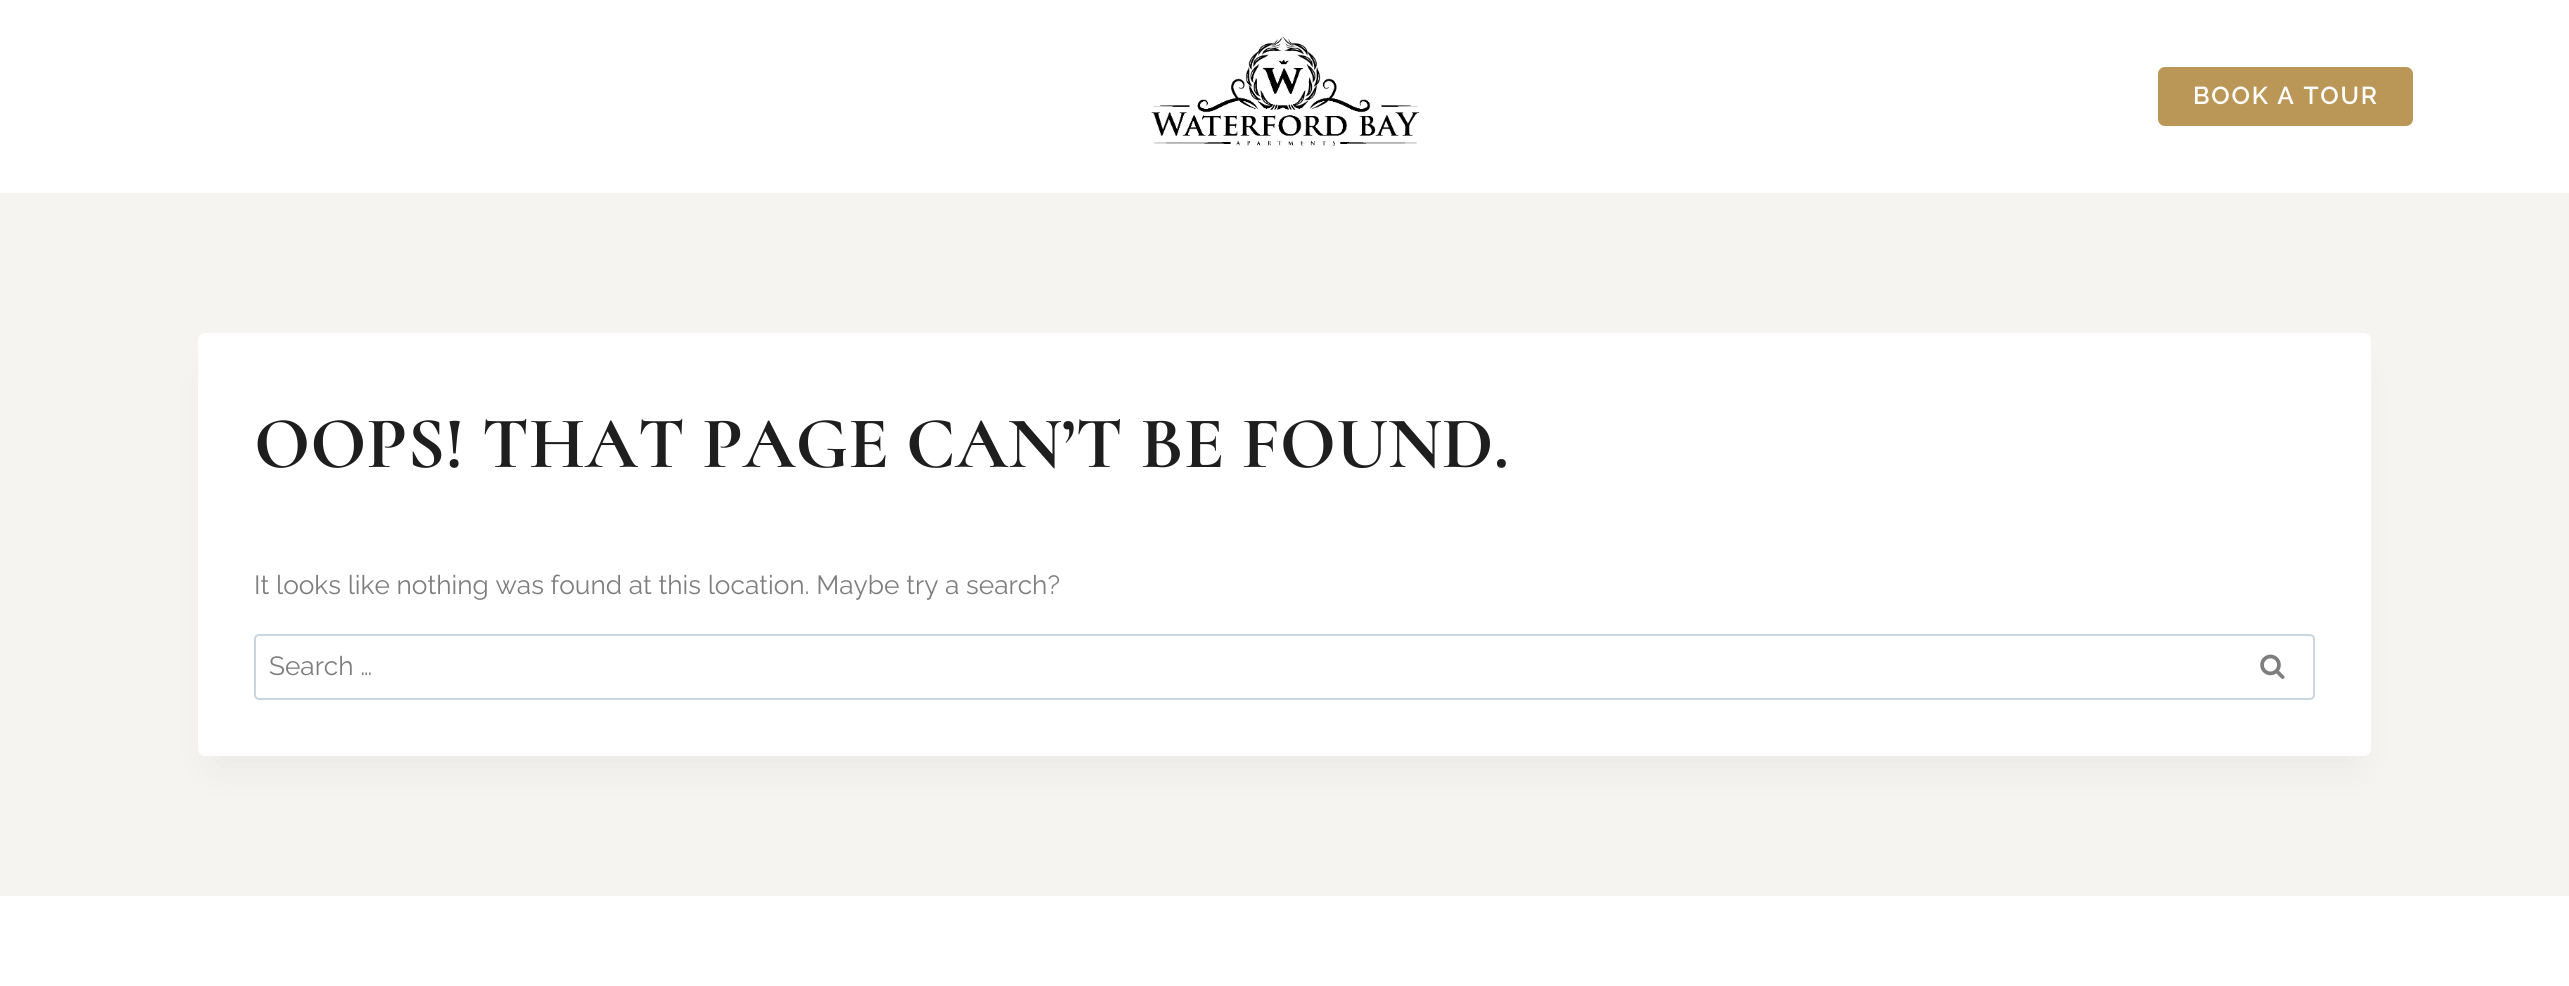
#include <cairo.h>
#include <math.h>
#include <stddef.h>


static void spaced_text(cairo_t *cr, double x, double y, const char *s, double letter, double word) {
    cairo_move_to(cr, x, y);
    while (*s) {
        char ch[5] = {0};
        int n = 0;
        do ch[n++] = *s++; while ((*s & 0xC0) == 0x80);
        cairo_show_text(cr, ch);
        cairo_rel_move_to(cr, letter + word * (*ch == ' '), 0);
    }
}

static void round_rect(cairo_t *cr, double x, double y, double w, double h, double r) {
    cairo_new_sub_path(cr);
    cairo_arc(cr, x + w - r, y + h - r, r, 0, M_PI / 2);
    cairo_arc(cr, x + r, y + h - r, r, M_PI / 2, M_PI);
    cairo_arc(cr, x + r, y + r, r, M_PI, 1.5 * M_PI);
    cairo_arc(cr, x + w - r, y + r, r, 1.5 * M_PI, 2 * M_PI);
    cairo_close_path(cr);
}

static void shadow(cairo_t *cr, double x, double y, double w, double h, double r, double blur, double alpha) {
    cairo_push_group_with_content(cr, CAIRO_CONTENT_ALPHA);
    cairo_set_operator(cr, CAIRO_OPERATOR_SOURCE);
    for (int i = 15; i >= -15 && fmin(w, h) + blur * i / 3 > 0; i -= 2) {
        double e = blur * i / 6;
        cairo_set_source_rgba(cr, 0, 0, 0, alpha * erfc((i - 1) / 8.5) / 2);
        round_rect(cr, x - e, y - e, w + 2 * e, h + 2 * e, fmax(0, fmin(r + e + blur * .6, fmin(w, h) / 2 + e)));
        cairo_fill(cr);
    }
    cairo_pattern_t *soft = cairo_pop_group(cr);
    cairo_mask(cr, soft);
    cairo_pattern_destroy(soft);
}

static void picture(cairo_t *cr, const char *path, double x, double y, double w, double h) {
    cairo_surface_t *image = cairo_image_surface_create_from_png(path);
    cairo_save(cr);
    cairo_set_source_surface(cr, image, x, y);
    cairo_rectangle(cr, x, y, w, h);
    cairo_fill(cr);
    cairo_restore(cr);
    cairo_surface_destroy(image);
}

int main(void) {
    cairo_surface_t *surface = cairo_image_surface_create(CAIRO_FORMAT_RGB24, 2569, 986);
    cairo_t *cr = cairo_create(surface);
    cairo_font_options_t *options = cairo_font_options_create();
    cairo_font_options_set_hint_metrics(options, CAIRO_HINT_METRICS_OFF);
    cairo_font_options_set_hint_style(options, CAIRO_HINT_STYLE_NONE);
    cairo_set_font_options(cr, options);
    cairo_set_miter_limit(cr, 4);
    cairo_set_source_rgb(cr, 0.961, 0.957, 0.945);
    cairo_paint(cr);
    cairo_set_source_rgb(cr, 1, 1, 1);
    cairo_rectangle(cr, 0, 0, 2569, 193);
    cairo_fill(cr);
    picture(cr, "img1.png", 1151, 36, 269, 110);
    cairo_set_source_rgb(cr, 0.729, 0.592, 0.337);
    round_rect(cr, 2158, 67, 255, 59, 7);
    cairo_fill(cr);
    cairo_select_font_face(cr, "Raleway SemiBold", CAIRO_FONT_SLANT_NORMAL, CAIRO_FONT_WEIGHT_NORMAL);
    cairo_set_font_size(cr, 24.5);
    cairo_set_source_rgb(cr, 1, 1, 1);
    spaced_text(cr, 2193, 104, "BOOK A TOUR", 1.75, 0);
    cairo_set_source_rgb(cr, 0, 0, 0);
    shadow(cr, 215, 376, 2139, 389, 0, 22, 0.05);
    cairo_set_source_rgb(cr, 1, 1, 1);
    round_rect(cr, 198, 333, 2173, 423, 7);
    cairo_fill(cr);
    cairo_select_font_face(cr, "Cormorant SC", CAIRO_FONT_SLANT_NORMAL, CAIRO_FONT_WEIGHT_BOLD);
    cairo_set_font_size(cr, 73.5);
    cairo_set_source_rgb(cr, 0.118, 0.118, 0.118);
    cairo_move_to(cr, 254, 467);
    cairo_show_text(cr, "OOPS! THAT PAGE CAN’T BE FOUND.");
    cairo_select_font_face(cr, "Raleway", CAIRO_FONT_SLANT_NORMAL, CAIRO_FONT_WEIGHT_NORMAL);
    cairo_set_font_size(cr, 26.25);
    cairo_set_source_rgb(cr, 0.494, 0.494, 0.494);
    cairo_move_to(cr, 254, 594);
    cairo_show_text(cr, "It looks like nothing was found at this location. Maybe try a search?");
    round_rect(cr, 255, 635, 2059, 64, 4);
    cairo_set_source_rgb(cr, 0.796, 0.835, 0.878);
    cairo_stroke(cr);
    cairo_set_source_rgb(cr, 0.494, 0.494, 0.494);
    cairo_move_to(cr, 269, 675);
    cairo_show_text(cr, "Search …");
    picture(cr, "img2.png", 2260, 654, 25, 25);
    cairo_set_source_rgb(cr, 1, 1, 1);
    cairo_rectangle(cr, 0, 896, 2569, 90);
    cairo_fill(cr);
    cairo_surface_write_to_png(surface, "page.png");
    cairo_font_options_destroy(options);
    cairo_destroy(cr);
    cairo_surface_destroy(surface);
    return 0;
}
